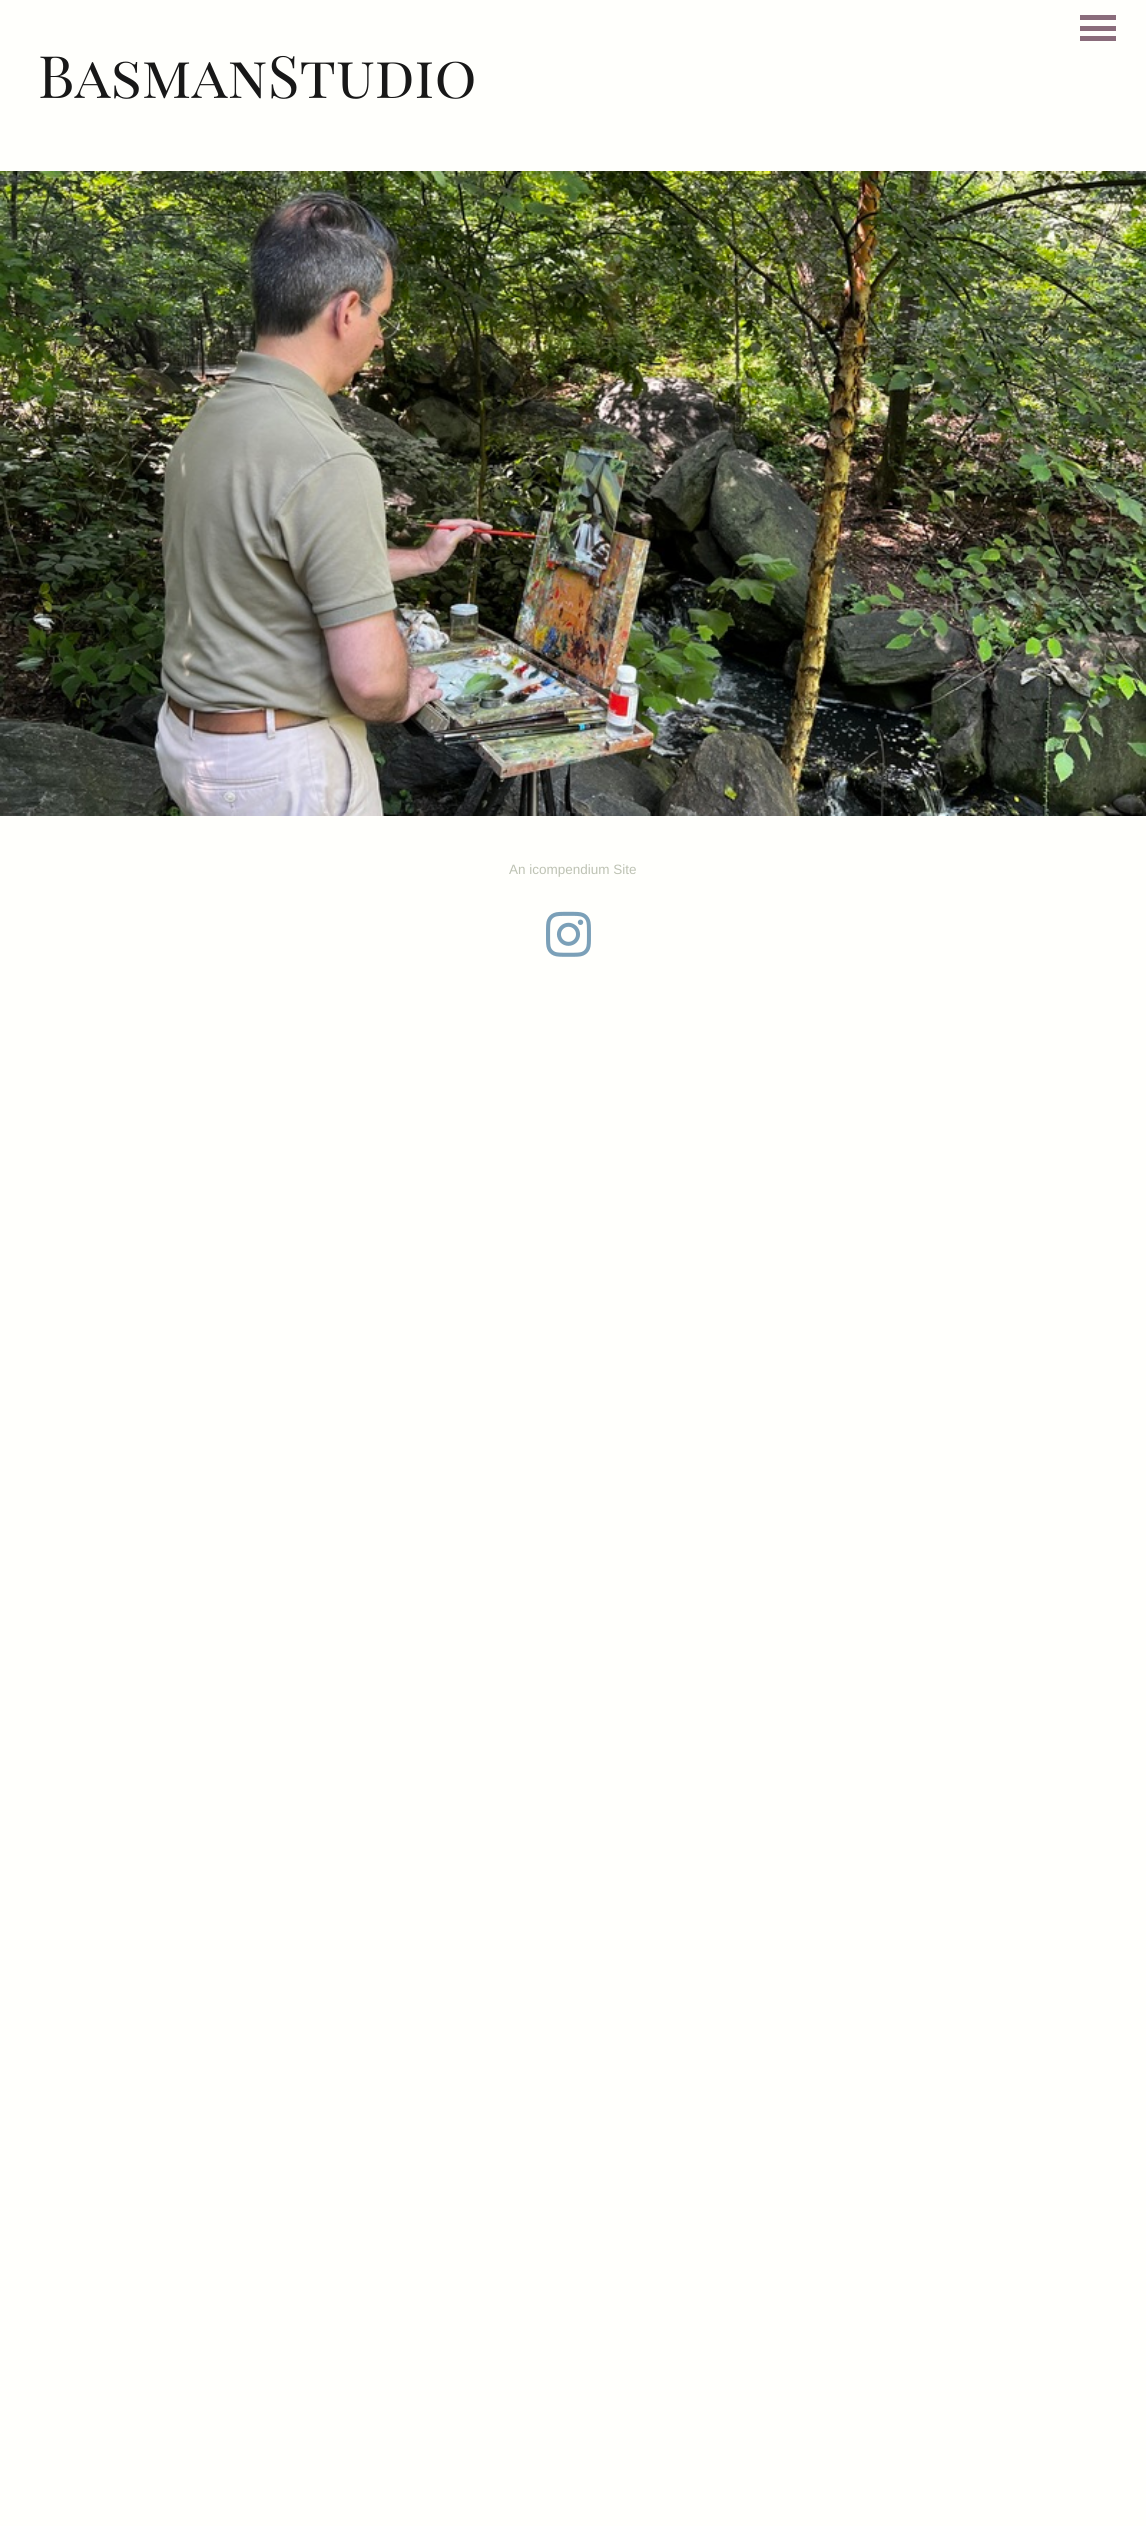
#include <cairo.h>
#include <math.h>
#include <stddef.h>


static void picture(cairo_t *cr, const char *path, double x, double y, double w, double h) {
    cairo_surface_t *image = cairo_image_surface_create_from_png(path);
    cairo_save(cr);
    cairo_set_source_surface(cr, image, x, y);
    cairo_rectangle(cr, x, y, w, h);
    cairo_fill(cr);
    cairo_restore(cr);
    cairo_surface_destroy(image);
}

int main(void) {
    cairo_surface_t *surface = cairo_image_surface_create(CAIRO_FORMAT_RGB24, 1146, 2526);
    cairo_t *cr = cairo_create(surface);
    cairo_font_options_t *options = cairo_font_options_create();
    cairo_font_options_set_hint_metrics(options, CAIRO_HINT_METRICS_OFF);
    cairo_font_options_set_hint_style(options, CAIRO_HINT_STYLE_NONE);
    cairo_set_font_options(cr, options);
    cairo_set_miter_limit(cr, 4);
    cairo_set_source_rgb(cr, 1, 1, 0.988);
    cairo_paint(cr);
    cairo_set_source_rgb(cr, 0.541, 0.424, 0.482);
    cairo_rectangle(cr, 1080, 15, 36, 5);
    cairo_fill(cr);
    cairo_rectangle(cr, 1080, 26, 36, 5);
    cairo_fill(cr);
    cairo_rectangle(cr, 1080, 36, 36, 5);
    cairo_fill(cr);
    cairo_select_font_face(cr, "Playfair Display SC", CAIRO_FONT_SLANT_NORMAL, CAIRO_FONT_WEIGHT_NORMAL);
    cairo_set_font_size(cr, 58.5);
    cairo_set_source_rgb(cr, 0.094, 0.094, 0.094);
    cairo_move_to(cr, 38, 98);
    cairo_show_text(cr, "BasmanStudio");
    picture(cr, "img1.png", 0, 171, 1146, 645);
    cairo_select_font_face(cr, "Liberation Sans", CAIRO_FONT_SLANT_NORMAL, CAIRO_FONT_WEIGHT_NORMAL);
    cairo_set_font_size(cr, 13.5);
    cairo_set_source_rgb(cr, 0.741, 0.761, 0.702);
    cairo_move_to(cr, 509, 874);
    cairo_show_text(cr, "An icompendium Site");
    picture(cr, "img2.png", 546, 911, 45, 46);
    cairo_surface_write_to_png(surface, "page.png");
    cairo_font_options_destroy(options);
    cairo_destroy(cr);
    cairo_surface_destroy(surface);
    return 0;
}
